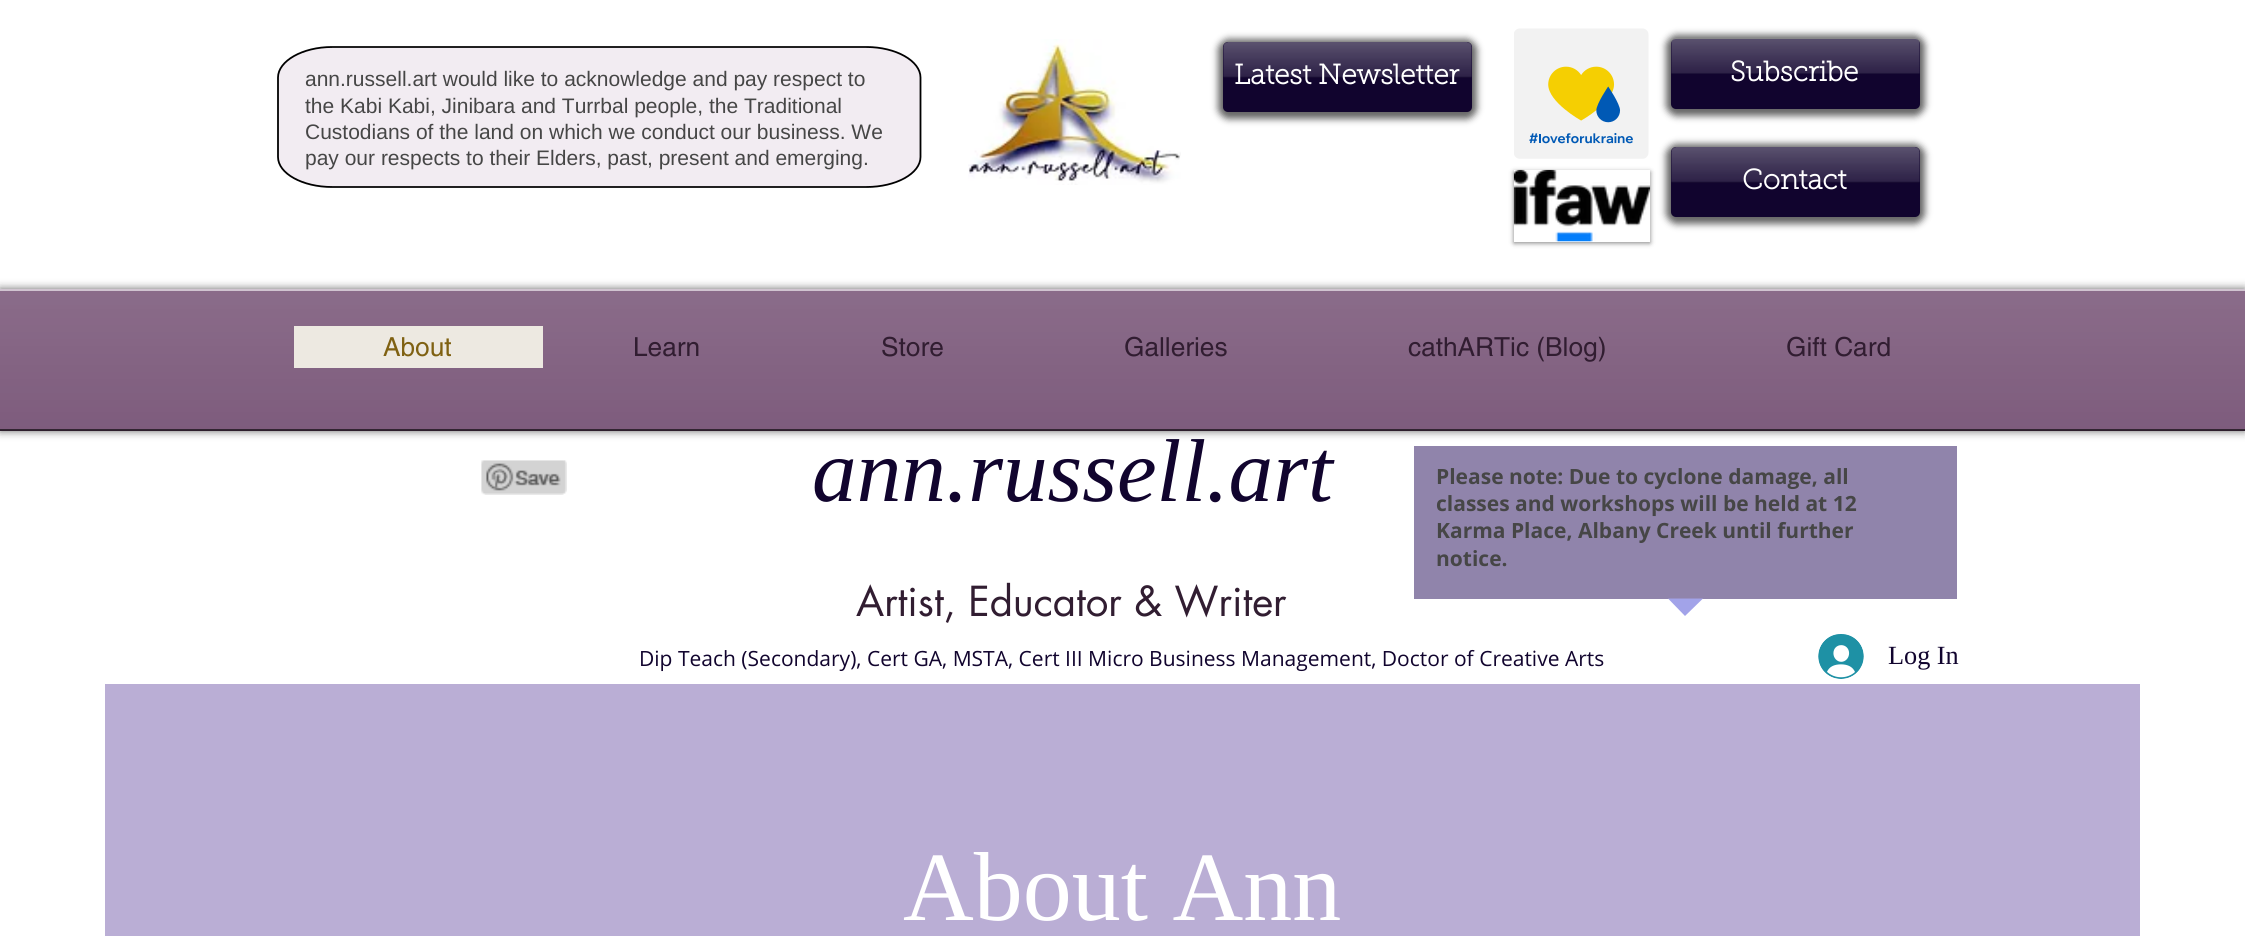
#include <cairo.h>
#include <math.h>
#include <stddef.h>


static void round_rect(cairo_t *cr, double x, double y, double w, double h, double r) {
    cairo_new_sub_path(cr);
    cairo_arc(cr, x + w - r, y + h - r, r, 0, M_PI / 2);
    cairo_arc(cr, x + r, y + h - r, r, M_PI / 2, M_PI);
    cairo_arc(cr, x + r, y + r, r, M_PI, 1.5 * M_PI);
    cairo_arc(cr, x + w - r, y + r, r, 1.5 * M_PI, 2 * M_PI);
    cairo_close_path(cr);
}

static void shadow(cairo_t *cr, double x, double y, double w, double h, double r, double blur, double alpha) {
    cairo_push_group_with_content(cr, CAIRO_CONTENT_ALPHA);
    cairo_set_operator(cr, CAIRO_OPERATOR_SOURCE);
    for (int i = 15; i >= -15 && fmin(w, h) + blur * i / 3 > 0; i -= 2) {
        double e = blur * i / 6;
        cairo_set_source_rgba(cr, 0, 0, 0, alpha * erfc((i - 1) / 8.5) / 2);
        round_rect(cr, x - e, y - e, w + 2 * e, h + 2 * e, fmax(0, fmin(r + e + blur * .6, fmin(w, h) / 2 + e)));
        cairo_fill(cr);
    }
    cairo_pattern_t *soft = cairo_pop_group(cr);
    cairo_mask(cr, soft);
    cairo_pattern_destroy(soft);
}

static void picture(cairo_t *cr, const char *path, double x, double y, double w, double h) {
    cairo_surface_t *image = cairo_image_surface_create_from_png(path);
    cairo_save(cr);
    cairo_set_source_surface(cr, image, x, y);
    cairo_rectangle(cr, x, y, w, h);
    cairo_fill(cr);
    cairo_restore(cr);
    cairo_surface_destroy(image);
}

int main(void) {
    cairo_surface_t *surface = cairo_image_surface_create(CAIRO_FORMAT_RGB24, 2245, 936);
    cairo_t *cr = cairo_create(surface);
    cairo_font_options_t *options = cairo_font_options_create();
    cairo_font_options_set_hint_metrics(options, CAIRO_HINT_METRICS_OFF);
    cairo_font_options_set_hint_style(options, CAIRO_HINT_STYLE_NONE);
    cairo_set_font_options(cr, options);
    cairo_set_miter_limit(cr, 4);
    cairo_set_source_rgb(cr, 1, 1, 1);
    cairo_paint(cr);
    cairo_set_source_rgb(cr, 0.949, 0.922, 0.949);
    cairo_new_path(cr);
    cairo_move_to(cr, 867, 187);
    cairo_line_to(cr, 332, 187);
    cairo_curve_to(cr, 303, 187, 278, 174, 278, 157);
    cairo_line_to(cr, 278, 78);
    cairo_curve_to(cr, 278, 61, 302, 47, 332, 47);
    cairo_line_to(cr, 867, 47);
    cairo_curve_to(cr, 896, 47, 921, 61, 921, 78);
    cairo_line_to(cr, 921, 157);
    cairo_curve_to(cr, 921, 174, 896, 187, 867, 187);
    cairo_close_path(cr);
    cairo_fill(cr);
    cairo_new_path(cr);
    cairo_move_to(cr, 866.5, 187);
    cairo_line_to(cr, 332, 187);
    cairo_curve_to(cr, 302.5, 187, 278, 173.5, 278, 157);
    cairo_line_to(cr, 278, 77.5);
    cairo_curve_to(cr, 278, 61, 302.5, 47, 332, 47);
    cairo_line_to(cr, 866.5, 47);
    cairo_curve_to(cr, 896, 47, 920.5, 61, 920.5, 77.5);
    cairo_line_to(cr, 920.5, 157);
    cairo_curve_to(cr, 920.5, 173.5, 896, 187, 866.5, 187);
    cairo_close_path(cr);
    cairo_set_source_rgb(cr, 0, 0, 0);
    cairo_set_line_width(cr, 1.8);
    cairo_stroke(cr);
    picture(cr, "img1.png", 968, 39, 213, 146);
    cairo_set_source_rgb(cr, 0, 0, 0);
    shadow(cr, 1218, 39, 259, 80, 11, 3.5, 0.6);
    cairo_set_source_rgb(cr, 0.067, 0.016, 0.18);
    round_rect(cr, 1223, 42, 249, 70, 5);
    cairo_fill(cr);
    picture(cr, "img2.png", 1223, 42, 249, 36);
    cairo_select_font_face(cr, "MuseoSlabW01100", CAIRO_FONT_SLANT_NORMAL, CAIRO_FONT_WEIGHT_BOLD);
    cairo_set_font_size(cr, 28);
    cairo_set_source_rgb(cr, 1, 1, 1);
    cairo_move_to(cr, 1234, 84);
    cairo_show_text(cr, "Latest Newsletter");
    picture(cr, "img3.png", 1514, 28, 135, 131);
    cairo_set_source_rgb(cr, 0, 0, 0);
    shadow(cr, 1666, 35, 259, 81, 11, 3.5, 0.6);
    cairo_set_source_rgb(cr, 0.067, 0.016, 0.18);
    round_rect(cr, 1671, 39, 249, 70, 5);
    cairo_fill(cr);
    picture(cr, "img4.png", 1671, 38, 249, 36);
    cairo_set_source_rgb(cr, 1, 1, 1);
    cairo_move_to(cr, 1730, 81);
    cairo_show_text(cr, "Subscribe");
    cairo_select_font_face(cr, "Liberation Sans", CAIRO_FONT_SLANT_NORMAL, CAIRO_FONT_WEIGHT_NORMAL);
    cairo_set_font_size(cr, 21);
    cairo_set_source_rgb(cr, 0.275, 0.275, 0.275);
    cairo_move_to(cr, 305, 86);
    cairo_show_text(cr, "ann.russell.art would like to acknowledge and pay respect to");
    cairo_move_to(cr, 305, 113);
    cairo_show_text(cr, "the Kabi Kabi, Jinibara and Turrbal people, the Traditional");
    cairo_move_to(cr, 305, 139);
    cairo_show_text(cr, "Custodians of the land on which we conduct our business. We");
    cairo_move_to(cr, 305, 165);
    cairo_show_text(cr, "pay our respects to their Elders, past, present and emerging.");
    cairo_set_source_rgb(cr, 0, 0, 0);
    shadow(cr, 1514, 172, 136, 71, 0, 2.5, 0.5);
    cairo_set_source_rgb(cr, 1, 1, 1);
    cairo_rectangle(cr, 1514, 170, 136, 72);
    cairo_fill(cr);
    picture(cr, "img5.png", 1513, 169, 138, 73);
    cairo_set_source_rgb(cr, 0, 0, 0);
    shadow(cr, 1666, 144, 259, 80, 11, 3.5, 0.6);
    cairo_set_source_rgb(cr, 0.067, 0.016, 0.18);
    round_rect(cr, 1671, 147, 249, 70, 5);
    cairo_fill(cr);
    picture(cr, "img2.png", 1671, 147, 249, 36);
    cairo_select_font_face(cr, "MuseoSlabW01100", CAIRO_FONT_SLANT_NORMAL, CAIRO_FONT_WEIGHT_BOLD);
    cairo_set_font_size(cr, 28);
    cairo_set_source_rgb(cr, 1, 1, 1);
    cairo_move_to(cr, 1742, 189);
    cairo_show_text(cr, "Contact");
    cairo_set_source_rgb(cr, 0, 0, 0);
    shadow(cr, 0, 289, 2245, 142, 0, 4.5, 0.6);
    cairo_set_source_rgb(cr, 0.384, 0.224, 0.38);
    cairo_rectangle(cr, 0, 291, 2245, 140);
    cairo_fill(cr);
    picture(cr, "img6.png", 0, 291, 2245, 140);
    cairo_set_source_rgba(cr, 0, 0, 0, 0.6);
    cairo_rectangle(cr, 0, 429, 2245, 2);
    cairo_fill(cr);
    cairo_set_source_rgb(cr, 0.816, 0.769, 0.816);
    cairo_rectangle(cr, 0, 289, 2245, 2);
    cairo_fill(cr);
    cairo_set_source_rgb(cr, 0.929, 0.914, 0.882);
    cairo_rectangle(cr, 294, 326, 249, 42);
    cairo_fill(cr);
    cairo_select_font_face(cr, "helvetica", CAIRO_FONT_SLANT_NORMAL, CAIRO_FONT_WEIGHT_NORMAL);
    cairo_set_font_size(cr, 26.25);
    cairo_set_source_rgb(cr, 0.498, 0.38, 0.071);
    cairo_move_to(cr, 383, 356);
    cairo_show_text(cr, "About");
    cairo_set_source_rgb(cr, 0.192, 0.114, 0.192);
    cairo_move_to(cr, 633, 356);
    cairo_show_text(cr, "Learn");
    cairo_move_to(cr, 881, 356);
    cairo_show_text(cr, "Store");
    cairo_move_to(cr, 1124, 356);
    cairo_show_text(cr, "Galleries");
    cairo_move_to(cr, 1408, 356);
    cairo_show_text(cr, "cathARTic (Blog)");
    cairo_move_to(cr, 1786, 356);
    cairo_show_text(cr, "Gift Card");
    picture(cr, "img7.png", 481, 460, 86, 35);
    cairo_select_font_face(cr, "Liberation Serif", CAIRO_FONT_SLANT_ITALIC, CAIRO_FONT_WEIGHT_NORMAL);
    cairo_set_font_size(cr, 89.25);
    cairo_set_source_rgb(cr, 0.067, 0.016, 0.18);
    cairo_move_to(cr, 812, 501);
    cairo_show_text(cr, "ann.russell.art");
    cairo_set_source_rgb(cr, 0.565, 0.518, 0.671);
    cairo_rectangle(cr, 1414, 446, 543, 153);
    cairo_fill(cr);
    cairo_select_font_face(cr, "Open Sans", CAIRO_FONT_SLANT_NORMAL, CAIRO_FONT_WEIGHT_BOLD);
    cairo_set_font_size(cr, 21);
    cairo_set_source_rgb(cr, 0.275, 0.275, 0.275);
    cairo_move_to(cr, 1436, 484);
    cairo_show_text(cr, "Please note: Due to cyclone damage, all");
    cairo_move_to(cr, 1436, 511);
    cairo_show_text(cr, "classes and workshops will be held at 12");
    cairo_move_to(cr, 1436, 538);
    cairo_show_text(cr, "Karma Place, Albany Creek until further");
    cairo_move_to(cr, 1436, 566);
    cairo_show_text(cr, "notice.");
    cairo_set_source_rgb(cr, 0.635, 0.639, 0.914);
    cairo_new_path(cr);
    cairo_move_to(cr, 1668, 598.5);
    cairo_line_to(cr, 1703, 598.5);
    cairo_line_to(cr, 1685, 616);
    cairo_close_path(cr);
    cairo_fill(cr);
    cairo_select_font_face(cr, "futura", CAIRO_FONT_SLANT_NORMAL, CAIRO_FONT_WEIGHT_NORMAL);
    cairo_set_font_size(cr, 40.25);
    cairo_set_source_rgb(cr, 0.192, 0.114, 0.192);
    cairo_move_to(cr, 856, 616);
    cairo_show_text(cr, "Artist, Educator & Writer");
    cairo_select_font_face(cr, "Open Sans", CAIRO_FONT_SLANT_NORMAL, CAIRO_FONT_WEIGHT_NORMAL);
    cairo_set_font_size(cr, 21);
    cairo_set_source_rgb(cr, 0.067, 0.016, 0.18);
    cairo_move_to(cr, 639, 666);
    cairo_show_text(cr, "Dip Teach (Secondary), Cert GA, MSTA, Cert III Micro Business Management, Doctor of Creative Arts");
    picture(cr, "img8.png", 1818, 634, 46, 45);
    cairo_select_font_face(cr, "Liberation Serif", CAIRO_FONT_SLANT_NORMAL, CAIRO_FONT_WEIGHT_NORMAL);
    cairo_set_font_size(cr, 26.25);
    cairo_move_to(cr, 1888, 664);
    cairo_show_text(cr, "Log In");
    cairo_set_source_rgb(cr, 0.729, 0.682, 0.835);
    cairo_rectangle(cr, 105, 684, 2035, 252);
    cairo_fill(cr);
    cairo_set_font_size(cr, 98);
    cairo_set_source_rgb(cr, 1, 1, 1);
    cairo_move_to(cr, 903, 920);
    cairo_show_text(cr, "About Ann");
    cairo_surface_write_to_png(surface, "page.png");
    cairo_font_options_destroy(options);
    cairo_destroy(cr);
    cairo_surface_destroy(surface);
    return 0;
}
